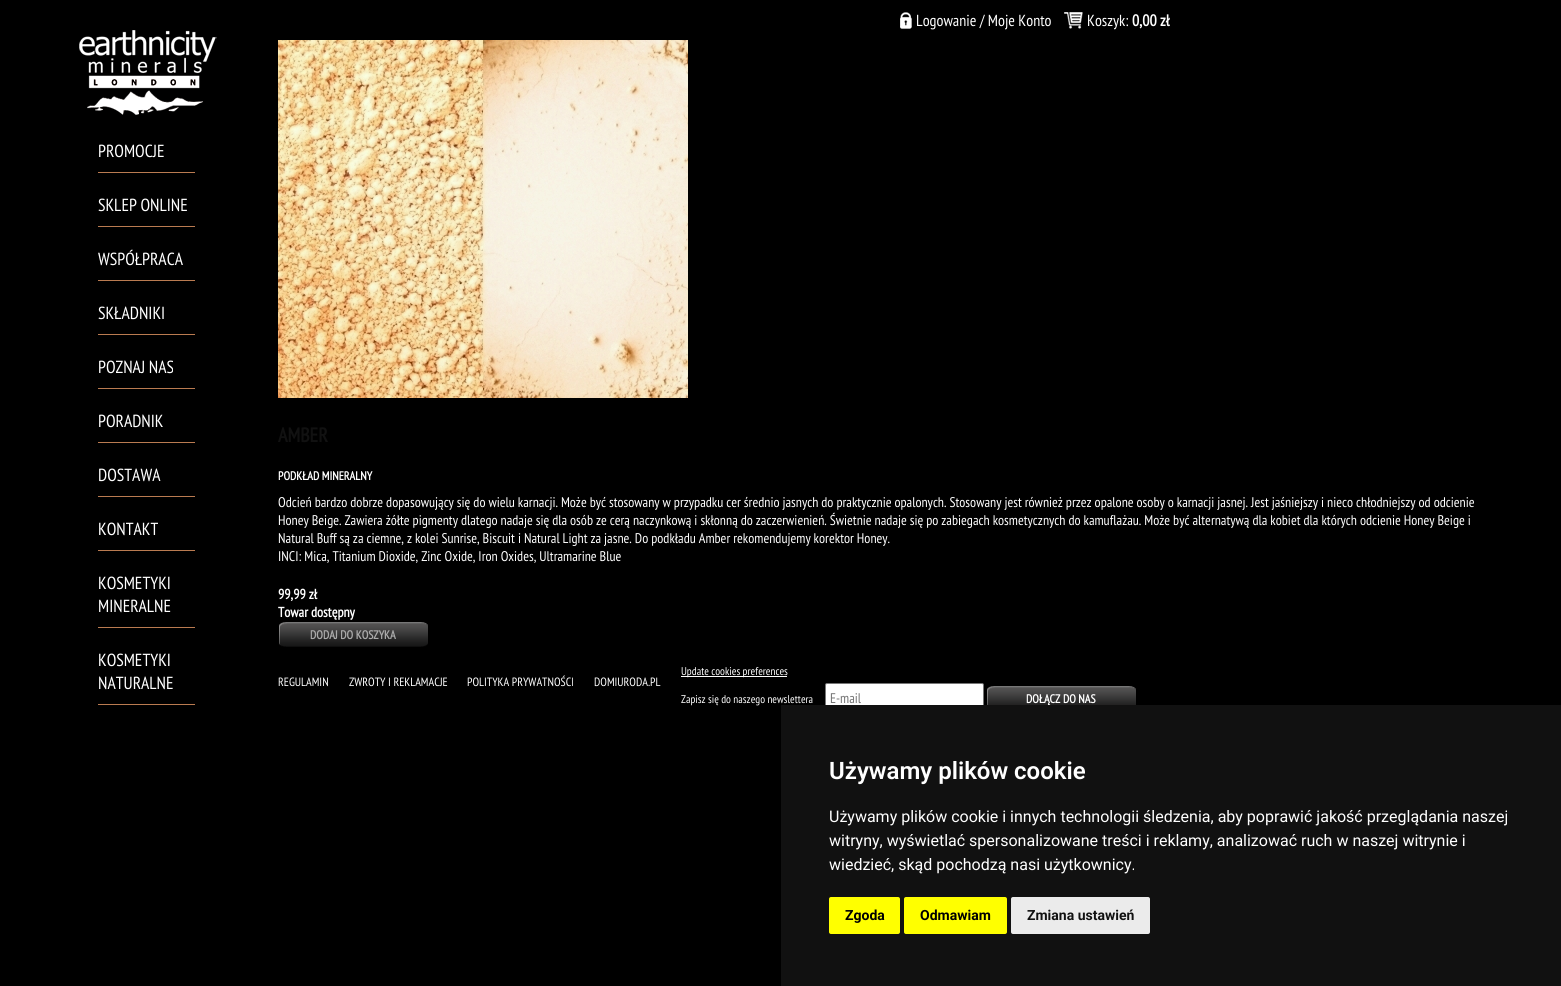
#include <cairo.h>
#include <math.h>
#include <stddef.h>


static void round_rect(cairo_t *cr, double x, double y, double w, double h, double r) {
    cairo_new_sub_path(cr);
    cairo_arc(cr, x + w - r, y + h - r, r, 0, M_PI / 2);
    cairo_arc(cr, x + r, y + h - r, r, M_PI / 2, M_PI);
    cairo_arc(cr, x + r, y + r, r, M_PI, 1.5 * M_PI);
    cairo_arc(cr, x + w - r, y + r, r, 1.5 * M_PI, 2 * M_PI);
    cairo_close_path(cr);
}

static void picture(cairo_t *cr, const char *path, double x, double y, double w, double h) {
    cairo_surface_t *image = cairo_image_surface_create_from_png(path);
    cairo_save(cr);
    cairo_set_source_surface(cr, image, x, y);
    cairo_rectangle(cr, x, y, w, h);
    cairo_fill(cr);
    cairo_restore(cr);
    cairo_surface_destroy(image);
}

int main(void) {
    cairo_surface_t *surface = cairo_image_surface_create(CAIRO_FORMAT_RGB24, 1561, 986);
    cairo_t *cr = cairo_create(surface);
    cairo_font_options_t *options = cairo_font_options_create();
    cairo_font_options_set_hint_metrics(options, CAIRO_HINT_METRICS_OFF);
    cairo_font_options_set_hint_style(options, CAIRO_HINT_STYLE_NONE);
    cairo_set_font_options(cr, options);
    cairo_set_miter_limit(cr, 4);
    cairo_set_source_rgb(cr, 0, 0, 0);
    cairo_paint(cr);
    picture(cr, "img1.png", 79, 30, 138, 85);
    cairo_set_source_rgb(cr, 0.729, 0.482, 0.318);
    cairo_rectangle(cr, 98, 172, 97, 1);
    cairo_fill(cr);
    cairo_select_font_face(cr, "PT Sans Narrow", CAIRO_FONT_SLANT_NORMAL, CAIRO_FONT_WEIGHT_NORMAL);
    cairo_set_font_size(cr, 17.5);
    cairo_set_source_rgb(cr, 1, 1, 1);
    cairo_move_to(cr, 98, 157);
    cairo_show_text(cr, "PROMOCJE");
    cairo_set_source_rgb(cr, 0.729, 0.482, 0.318);
    cairo_rectangle(cr, 98, 226, 97, 1);
    cairo_fill(cr);
    cairo_set_source_rgb(cr, 1, 1, 1);
    cairo_move_to(cr, 98, 211);
    cairo_show_text(cr, "SKLEP ONLINE");
    cairo_set_source_rgb(cr, 0.729, 0.482, 0.318);
    cairo_rectangle(cr, 98, 280, 97, 1);
    cairo_fill(cr);
    cairo_set_source_rgb(cr, 1, 1, 1);
    cairo_move_to(cr, 98, 265);
    cairo_show_text(cr, "WSPÓŁPRACA");
    cairo_set_source_rgb(cr, 0.729, 0.482, 0.318);
    cairo_rectangle(cr, 98, 334, 97, 1);
    cairo_fill(cr);
    cairo_set_source_rgb(cr, 1, 1, 1);
    cairo_move_to(cr, 98, 319);
    cairo_show_text(cr, "SKŁADNIKI");
    cairo_set_source_rgb(cr, 0.729, 0.482, 0.318);
    cairo_rectangle(cr, 98, 388, 97, 1);
    cairo_fill(cr);
    cairo_set_source_rgb(cr, 1, 1, 1);
    cairo_move_to(cr, 98, 373);
    cairo_show_text(cr, "POZNAJ NAS");
    cairo_set_source_rgb(cr, 0.729, 0.482, 0.318);
    cairo_rectangle(cr, 98, 442, 97, 1);
    cairo_fill(cr);
    cairo_set_source_rgb(cr, 1, 1, 1);
    cairo_move_to(cr, 98, 427);
    cairo_show_text(cr, "PORADNIK");
    cairo_set_source_rgb(cr, 0.729, 0.482, 0.318);
    cairo_rectangle(cr, 98, 496, 97, 1);
    cairo_fill(cr);
    cairo_set_source_rgb(cr, 1, 1, 1);
    cairo_move_to(cr, 98, 481);
    cairo_show_text(cr, "DOSTAWA");
    cairo_set_source_rgb(cr, 0.729, 0.482, 0.318);
    cairo_rectangle(cr, 98, 550, 97, 1);
    cairo_fill(cr);
    cairo_set_source_rgb(cr, 1, 1, 1);
    cairo_move_to(cr, 98, 535);
    cairo_show_text(cr, "KONTAKT");
    cairo_set_source_rgb(cr, 0.729, 0.482, 0.318);
    cairo_rectangle(cr, 98, 627, 97, 1);
    cairo_fill(cr);
    cairo_set_source_rgb(cr, 1, 1, 1);
    cairo_move_to(cr, 98, 589);
    cairo_show_text(cr, "KOSMETYKI");
    cairo_move_to(cr, 98, 612);
    cairo_show_text(cr, "MINERALNE");
    cairo_set_source_rgb(cr, 0.729, 0.482, 0.318);
    cairo_rectangle(cr, 98, 704, 97, 1);
    cairo_fill(cr);
    cairo_set_source_rgb(cr, 1, 1, 1);
    cairo_move_to(cr, 98, 666);
    cairo_show_text(cr, "KOSMETYKI");
    cairo_move_to(cr, 98, 689);
    cairo_show_text(cr, "NATURALNE");
    picture(cr, "img2.png", 900, 12, 12, 17);
    cairo_set_font_size(cr, 16);
    cairo_move_to(cr, 916, 26);
    cairo_show_text(cr, "Logowanie / Moje Konto");
    picture(cr, "img3.png", 1064, 12, 19, 17);
    cairo_move_to(cr, 1087, 26);
    cairo_show_text(cr, "Koszyk:");
    cairo_select_font_face(cr, "PT Sans Narrow", CAIRO_FONT_SLANT_NORMAL, CAIRO_FONT_WEIGHT_BOLD);
    cairo_move_to(cr, 1132, 26);
    cairo_show_text(cr, "0,00 zł");
    picture(cr, "img4.png", 278, 40, 410, 358);
    cairo_set_font_size(cr, 20);
    cairo_set_source_rgb(cr, 0.067, 0.067, 0.067);
    cairo_move_to(cr, 278, 442);
    cairo_show_text(cr, "AMBER");
    cairo_set_font_size(cr, 12);
    cairo_set_source_rgb(cr, 1, 1, 1);
    cairo_move_to(cr, 278, 480);
    cairo_show_text(cr, "PODKŁAD MINERALNY");
    cairo_select_font_face(cr, "PT Sans Narrow", CAIRO_FONT_SLANT_NORMAL, CAIRO_FONT_WEIGHT_NORMAL);
    cairo_set_font_size(cr, 14);
    cairo_move_to(cr, 278, 507);
    cairo_show_text(cr, "Odcień bardzo dobrze dopasowujący się do wielu karnacji. Może być stosowany w przypadku cer średnio jasnych do praktycznie opalonych. Stosowany jest również przez opalone osoby o karnacji jasnej. Jest jaśniejszy i nieco chłodniejszy od odcienie");
    cairo_move_to(cr, 278, 525);
    cairo_show_text(cr, "Honey Beige. Zawiera żółte pigmenty dlatego nadaje się dla osób ze cerą naczynkową i skłonną do zaczerwienień. Świetnie nadaje się po zabiegach kosmetycznych do kamuflażau. Może być alternatywą dla kobiet dla których odcienie Honey Beige i");
    cairo_move_to(cr, 278, 543);
    cairo_show_text(cr, "Natural Buff są za ciemne, z kolei Sunrise, Biscuit i Natural Light za jasne. Do podkładu Amber rekomendujemy korektor Honey.");
    cairo_move_to(cr, 278, 561);
    cairo_show_text(cr, "INCI: Mica, Titanium Dioxide, Zinc Oxide, Iron Oxides, Ultramarine Blue");
    cairo_select_font_face(cr, "PT Sans Narrow", CAIRO_FONT_SLANT_NORMAL, CAIRO_FONT_WEIGHT_BOLD);
    cairo_move_to(cr, 278, 599);
    cairo_show_text(cr, "99,99 zł");
    cairo_move_to(cr, 278, 617);
    cairo_show_text(cr, "Towar dostępny");
    picture(cr, "img5.png", 279, 622, 149, 25);
    cairo_set_font_size(cr, 12);
    cairo_set_source_rgb(cr, 0.667, 0.667, 0.667);
    cairo_move_to(cr, 310, 639);
    cairo_show_text(cr, "DODAJ DO KOSZYKA");
    cairo_set_source_rgb(cr, 1, 1, 1);
    cairo_rectangle(cr, 681, 676, 106, 1);
    cairo_fill(cr);
    cairo_select_font_face(cr, "PT Sans Narrow", CAIRO_FONT_SLANT_NORMAL, CAIRO_FONT_WEIGHT_NORMAL);
    cairo_set_font_size(cr, 11.25);
    cairo_move_to(cr, 681, 675);
    cairo_show_text(cr, "Update cookies preferences");
    cairo_set_font_size(cr, 12);
    cairo_move_to(cr, 278, 686);
    cairo_show_text(cr, "REGULAMIN");
    cairo_move_to(cr, 349, 686);
    cairo_show_text(cr, "ZWROTY I REKLAMACJE");
    cairo_move_to(cr, 467, 686);
    cairo_show_text(cr, "POLITYKA PRYWATNOŚCI");
    cairo_move_to(cr, 594, 686);
    cairo_show_text(cr, "DOMIURODA.PL");
    cairo_set_font_size(cr, 11.25);
    cairo_move_to(cr, 681, 703);
    cairo_show_text(cr, "Zapisz się do naszego newslettera");
    round_rect(cr, 825.5, 683.5, 158, 28, 1.5);
    cairo_fill_preserve(cr);
    cairo_set_source_rgb(cr, 0.463, 0.463, 0.463);
    cairo_set_line_width(cr, 1);
    cairo_stroke(cr);
    cairo_set_font_size(cr, 14);
    cairo_set_source_rgb(cr, 0.459, 0.459, 0.459);
    cairo_move_to(cr, 830, 703);
    cairo_show_text(cr, "E-mail");
    picture(cr, "img6.png", 987, 686, 149, 19);
    cairo_select_font_face(cr, "PT Sans Narrow", CAIRO_FONT_SLANT_NORMAL, CAIRO_FONT_WEIGHT_BOLD);
    cairo_set_font_size(cr, 12);
    cairo_set_source_rgb(cr, 1, 1, 1);
    cairo_move_to(cr, 1026, 703);
    cairo_show_text(cr, "DOŁĄCZ DO NAS");
    cairo_set_source_rgb(cr, 0.067, 0.067, 0.067);
    cairo_rectangle(cr, 781, 705, 780, 281);
    cairo_fill(cr);
    cairo_select_font_face(cr, "Roboto SemiBold", CAIRO_FONT_SLANT_NORMAL, CAIRO_FONT_WEIGHT_NORMAL);
    cairo_set_font_size(cr, 24);
    cairo_set_source_rgb(cr, 1, 1, 1);
    cairo_move_to(cr, 829, 779);
    cairo_show_text(cr, "Używamy plików cookie");
    cairo_select_font_face(cr, "Roboto", CAIRO_FONT_SLANT_NORMAL, CAIRO_FONT_WEIGHT_NORMAL);
    cairo_set_font_size(cr, 16);
    cairo_move_to(cr, 829, 822);
    cairo_show_text(cr, "Używamy plików cookie i innych technologii śledzenia, aby poprawić jakość przeglądania naszej");
    cairo_move_to(cr, 829, 846);
    cairo_show_text(cr, "witryny, wyświetlać spersonalizowane treści i reklamy, analizować ruch w naszej witrynie i");
    cairo_move_to(cr, 829, 870);
    cairo_show_text(cr, "wiedzieć, skąd pochodzą nasi użytkownicy.");
    cairo_set_source_rgb(cr, 1, 1, 0);
    round_rect(cr, 829, 897, 71, 37, 2);
    cairo_fill(cr);
    cairo_select_font_face(cr, "Roboto", CAIRO_FONT_SLANT_NORMAL, CAIRO_FONT_WEIGHT_BOLD);
    cairo_set_font_size(cr, 14);
    cairo_set_source_rgb(cr, 0, 0, 0);
    cairo_move_to(cr, 845, 920);
    cairo_show_text(cr, "Zgoda");
    cairo_set_source_rgb(cr, 1, 1, 0);
    round_rect(cr, 904, 897, 103, 37, 2);
    cairo_fill(cr);
    cairo_set_source_rgb(cr, 0, 0, 0);
    cairo_move_to(cr, 920, 920);
    cairo_show_text(cr, "Odmawiam");
    cairo_set_source_rgb(cr, 0.918, 0.918, 0.918);
    round_rect(cr, 1011, 897, 139, 37, 2);
    cairo_fill(cr);
    cairo_set_source_rgb(cr, 0.067, 0.067, 0.067);
    cairo_move_to(cr, 1027, 920);
    cairo_show_text(cr, "Zmiana ustawień");
    cairo_surface_write_to_png(surface, "page.png");
    cairo_font_options_destroy(options);
    cairo_destroy(cr);
    cairo_surface_destroy(surface);
    return 0;
}
